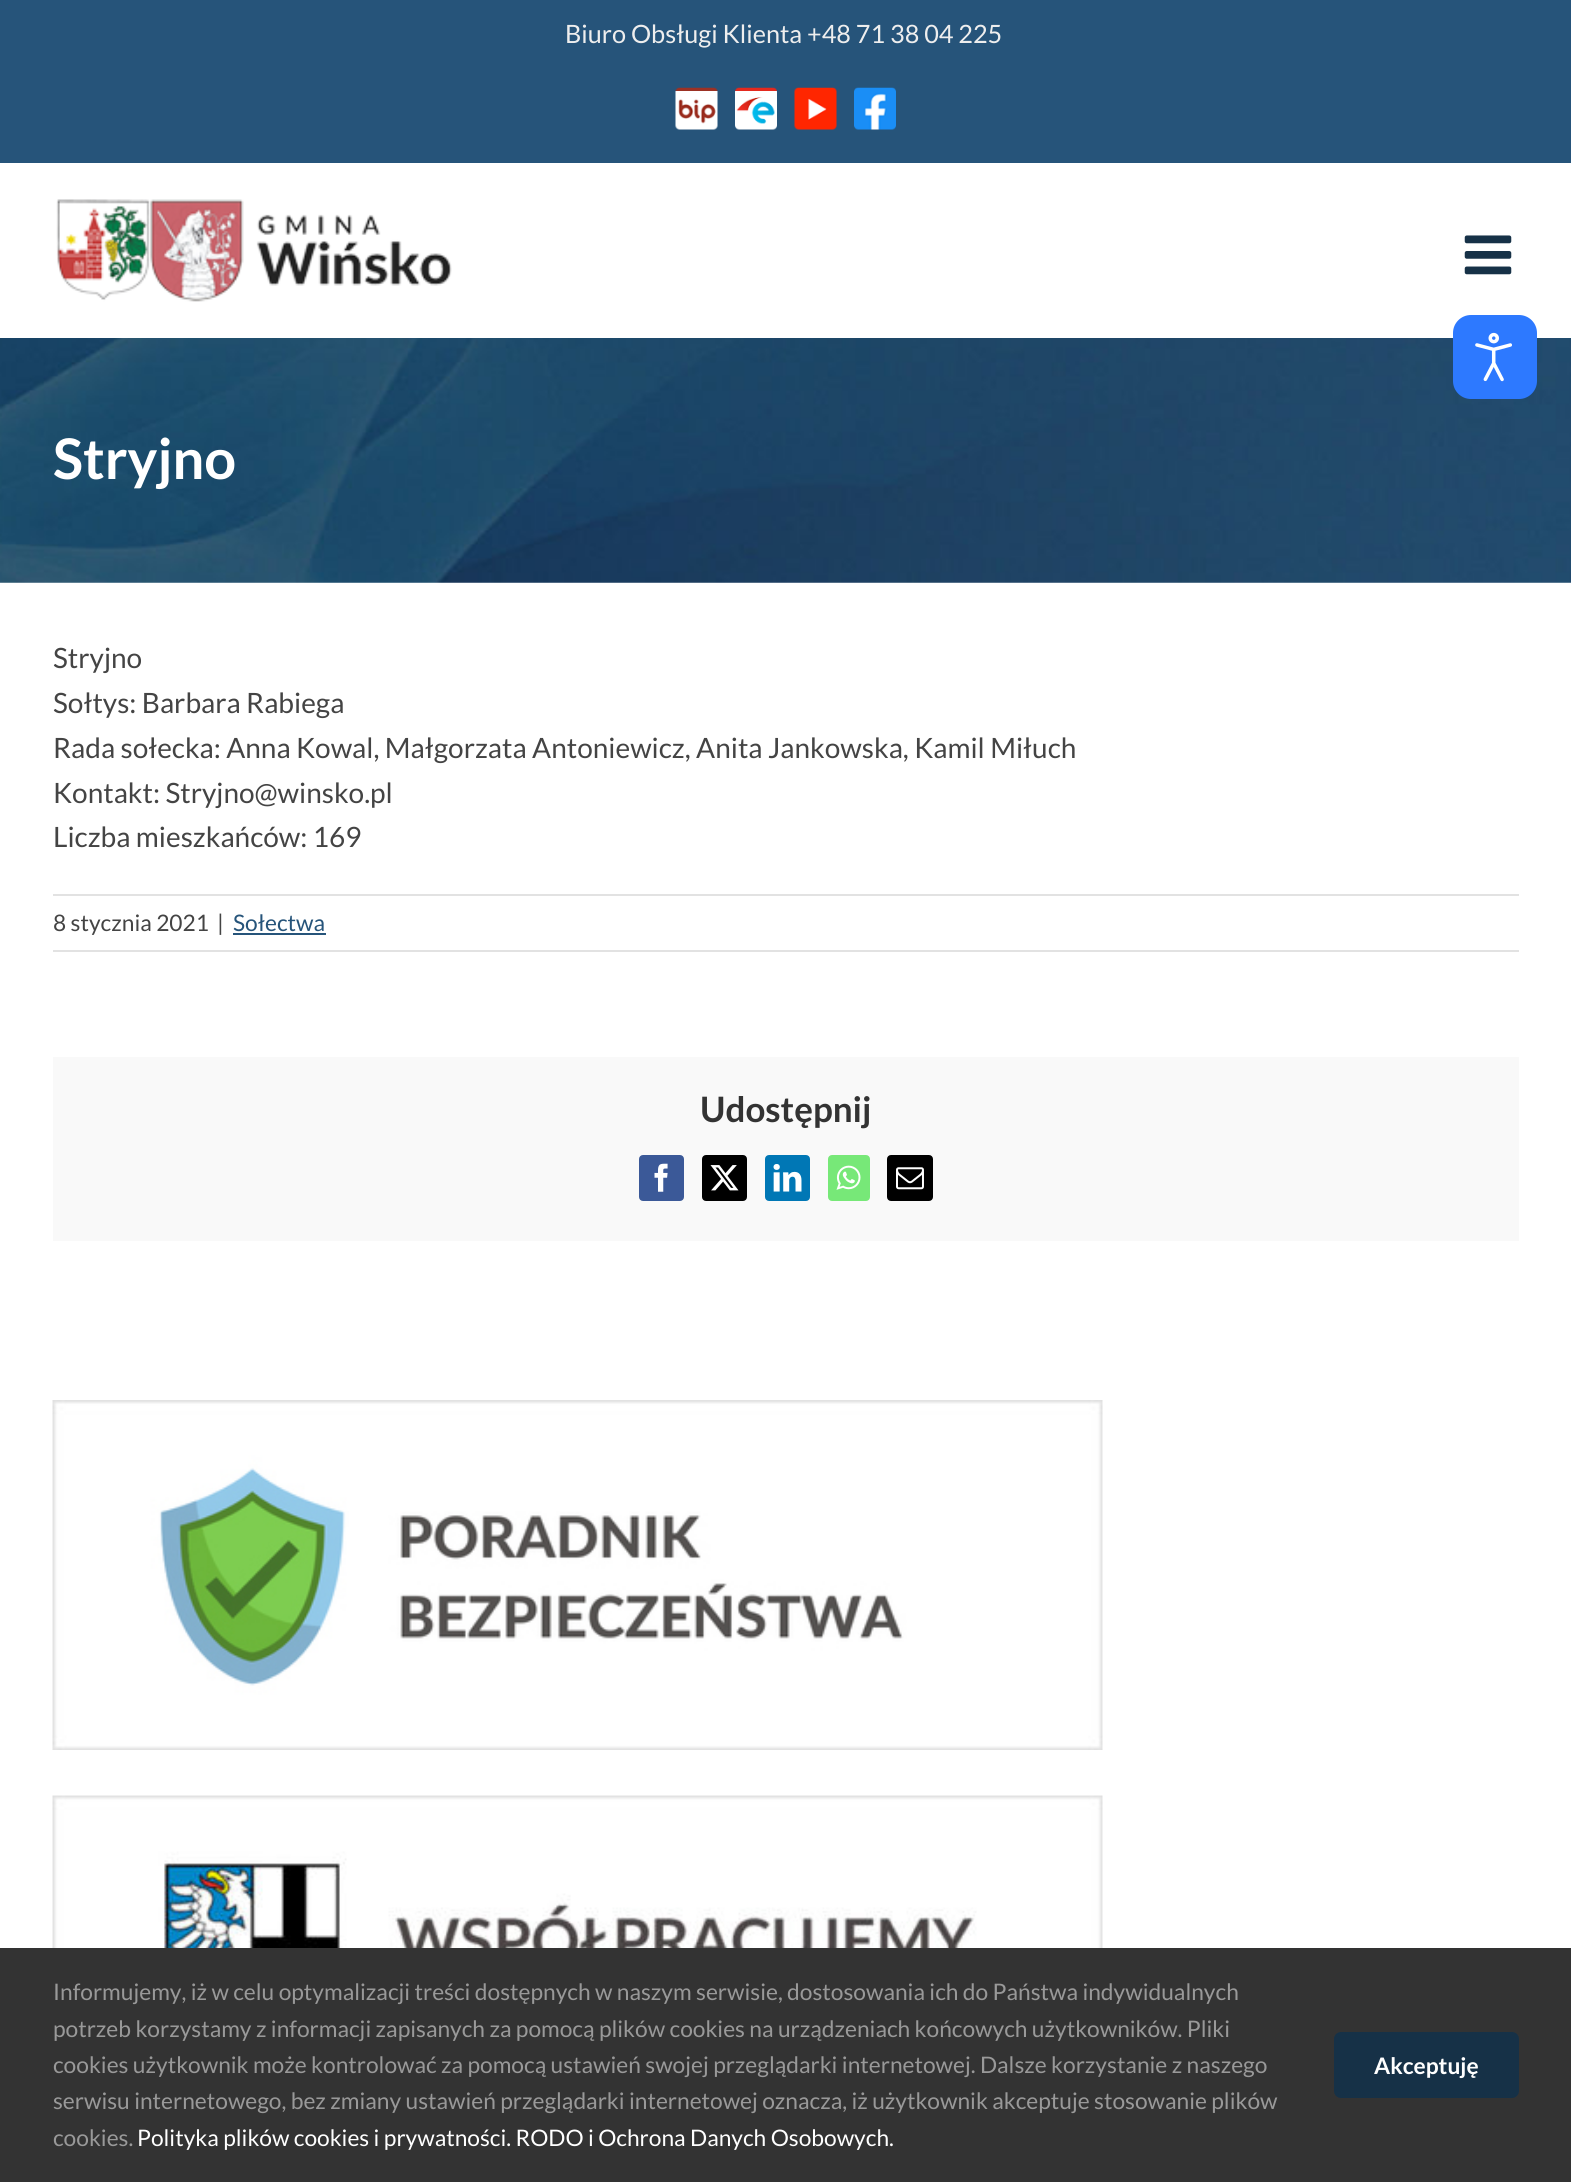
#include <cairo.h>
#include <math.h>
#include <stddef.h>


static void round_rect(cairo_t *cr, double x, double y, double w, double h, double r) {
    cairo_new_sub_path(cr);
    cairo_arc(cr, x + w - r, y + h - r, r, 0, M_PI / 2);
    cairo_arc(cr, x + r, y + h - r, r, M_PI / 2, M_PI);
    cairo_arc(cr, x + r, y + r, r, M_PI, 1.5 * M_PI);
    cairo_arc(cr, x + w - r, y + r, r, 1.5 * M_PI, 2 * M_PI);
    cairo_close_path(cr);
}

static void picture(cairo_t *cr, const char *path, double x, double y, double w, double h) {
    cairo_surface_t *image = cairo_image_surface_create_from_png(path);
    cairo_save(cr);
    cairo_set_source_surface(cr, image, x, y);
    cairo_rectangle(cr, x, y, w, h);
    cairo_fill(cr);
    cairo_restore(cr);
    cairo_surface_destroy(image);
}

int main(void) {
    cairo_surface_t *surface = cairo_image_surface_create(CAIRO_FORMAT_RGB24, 1571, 2182);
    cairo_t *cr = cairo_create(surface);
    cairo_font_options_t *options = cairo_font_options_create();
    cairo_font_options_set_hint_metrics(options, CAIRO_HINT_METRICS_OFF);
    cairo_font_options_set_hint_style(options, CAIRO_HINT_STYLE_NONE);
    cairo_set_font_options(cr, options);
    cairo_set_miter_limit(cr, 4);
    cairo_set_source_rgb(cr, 1, 1, 1);
    cairo_paint(cr);
    cairo_set_source_rgb(cr, 0.149, 0.329, 0.478);
    cairo_rectangle(cr, 0, 0, 1571, 163);
    cairo_fill(cr);
    cairo_select_font_face(cr, "Lato", CAIRO_FONT_SLANT_NORMAL, CAIRO_FONT_WEIGHT_NORMAL);
    cairo_set_font_size(cr, 25.25);
    cairo_set_source_rgb(cr, 0.933, 0.933, 0.933);
    cairo_move_to(cr, 565, 43);
    cairo_show_text(cr, "Biuro Obsługi Klienta +48 71 38 04 225");
    picture(cr, "img1.png", 675, 87, 43, 43);
    picture(cr, "img2.png", 735, 87, 42, 43);
    picture(cr, "img3.png", 794, 87, 43, 43);
    picture(cr, "img4.png", 854, 87, 42, 43);
    picture(cr, "img5.png", 56, 199, 396, 103);
    picture(cr, "img6.png", 1464, 235, 48, 40);
    picture(cr, "img7.png", 0, 338, 1571, 245);
    cairo_select_font_face(cr, "Lato", CAIRO_FONT_SLANT_NORMAL, CAIRO_FONT_WEIGHT_BOLD);
    cairo_set_font_size(cr, 56);
    cairo_set_source_rgb(cr, 1, 1, 1);
    cairo_move_to(cr, 53, 479);
    cairo_show_text(cr, "Stryjno");
    cairo_select_font_face(cr, "Lato", CAIRO_FONT_SLANT_NORMAL, CAIRO_FONT_WEIGHT_NORMAL);
    cairo_set_font_size(cr, 28);
    cairo_set_source_rgb(cr, 0.267, 0.267, 0.267);
    cairo_move_to(cr, 53, 668);
    cairo_show_text(cr, "Stryjno");
    cairo_move_to(cr, 53, 713);
    cairo_show_text(cr, "Sołtys: Barbara Rabiega");
    cairo_move_to(cr, 53, 758);
    cairo_show_text(cr, "Rada sołecka: Anna Kowal, Małgorzata Antoniewicz, Anita Jankowska, Kamil Miłuch");
    cairo_move_to(cr, 53, 803);
    cairo_show_text(cr, "Kontakt: Stryjno@winsko.pl");
    cairo_move_to(cr, 53, 847);
    cairo_show_text(cr, "Liczba mieszkańców: 169");
    cairo_set_source_rgb(cr, 0.886, 0.886, 0.886);
    cairo_rectangle(cr, 53, 894, 1466, 2);
    cairo_fill(cr);
    cairo_rectangle(cr, 53, 950, 1466, 2);
    cairo_fill(cr);
    cairo_set_font_size(cr, 22.75);
    cairo_set_source_rgb(cr, 0.267, 0.267, 0.267);
    cairo_move_to(cr, 53, 931);
    cairo_show_text(cr, "8 stycznia 2021");
    cairo_move_to(cr, 217, 931);
    cairo_show_text(cr, "|");
    cairo_set_source_rgb(cr, 0.149, 0.329, 0.478);
    cairo_move_to(cr, 233, 931);
    cairo_show_text(cr, "Sołectwa");
    cairo_rectangle(cr, 233, 933, 93, 2);
    cairo_fill(cr);
    cairo_set_source_rgb(cr, 0.976, 0.976, 0.976);
    cairo_rectangle(cr, 53, 1057, 1466, 184);
    cairo_fill(cr);
    cairo_select_font_face(cr, "Lato", CAIRO_FONT_SLANT_NORMAL, CAIRO_FONT_WEIGHT_BOLD);
    cairo_set_font_size(cr, 35);
    cairo_set_source_rgb(cr, 0.2, 0.2, 0.2);
    cairo_move_to(cr, 700, 1122);
    cairo_show_text(cr, "Udostępnij");
    cairo_set_source_rgb(cr, 0.231, 0.349, 0.596);
    round_rect(cr, 640, 1156, 43, 44, 3);
    cairo_fill_preserve(cr);
    cairo_stroke(cr);
    picture(cr, "img8.png", 654, 1163, 14, 29);
    cairo_set_source_rgb(cr, 0, 0, 0);
    round_rect(cr, 703, 1156, 43, 44, 3);
    cairo_fill_preserve(cr);
    cairo_stroke(cr);
    picture(cr, "img9.png", 710, 1165, 29, 26);
    cairo_set_source_rgb(cr, 0, 0.467, 0.71);
    round_rect(cr, 766, 1156, 43, 44, 3);
    cairo_fill_preserve(cr);
    cairo_stroke(cr);
    picture(cr, "img10.png", 773, 1164, 29, 28);
    cairo_set_source_rgb(cr, 0.467, 0.91, 0.471);
    round_rect(cr, 829, 1156, 40, 44, 3);
    cairo_fill_preserve(cr);
    cairo_stroke(cr);
    picture(cr, "img11.png", 836, 1165, 25, 25);
    cairo_set_source_rgb(cr, 0, 0, 0);
    round_rect(cr, 888, 1156, 44, 44, 3);
    cairo_fill_preserve(cr);
    cairo_stroke(cr);
    picture(cr, "img12.png", 896, 1167, 28, 23);
    picture(cr, "img13.png", 52, 1400, 1051, 350);
    picture(cr, "img14.png", 52, 1795, 1051, 153);
    cairo_set_source_rgb(cr, 0.176, 0.475, 1);
    round_rect(cr, 1453, 315, 84, 84, 18);
    cairo_fill(cr);
    picture(cr, "img15.png", 1475, 332, 37, 50);
    cairo_set_source_rgb(cr, 0.2, 0.2, 0.2);
    cairo_rectangle(cr, 0, 1948, 1571, 234);
    cairo_fill(cr);
    cairo_select_font_face(cr, "Lato", CAIRO_FONT_SLANT_NORMAL, CAIRO_FONT_WEIGHT_NORMAL);
    cairo_set_font_size(cr, 22.75);
    cairo_set_source_rgb(cr, 0.6, 0.6, 0.6);
    cairo_move_to(cr, 53, 2000);
    cairo_show_text(cr, "Informujemy, iż w celu optymalizacji treści dostępnych w naszym serwisie, dostosowania ich do Państwa indywidualnych");
    cairo_move_to(cr, 53, 2037);
    cairo_show_text(cr, "potrzeb korzystamy z informacji zapisanych za pomocą plików cookies na urządzeniach końcowych użytkowników. Pliki");
    cairo_move_to(cr, 53, 2073);
    cairo_show_text(cr, "cookies użytkownik może kontrolować za pomocą ustawień swojej przeglądarki internetowej. Dalsze korzystanie z naszego");
    cairo_move_to(cr, 53, 2109);
    cairo_show_text(cr, "serwisu internetowego, bez zmiany ustawień przeglądarki internetowej oznacza, iż użytkownik akceptuje stosowanie plików");
    cairo_move_to(cr, 53, 2146);
    cairo_show_text(cr, "cookies.");
    cairo_set_source_rgb(cr, 1, 1, 1);
    cairo_move_to(cr, 137, 2146);
    cairo_show_text(cr, "Polityka plików cookies i prywatności. RODO i Ochrona Danych Osobowych.");
    cairo_set_source_rgb(cr, 0.086, 0.192, 0.278);
    round_rect(cr, 1334, 2032, 185, 66, 7);
    cairo_fill(cr);
    cairo_select_font_face(cr, "Lato", CAIRO_FONT_SLANT_NORMAL, CAIRO_FONT_WEIGHT_BOLD);
    cairo_set_source_rgb(cr, 1, 1, 1);
    cairo_move_to(cr, 1374, 2074);
    cairo_show_text(cr, "Akceptuję");
    cairo_surface_write_to_png(surface, "page.png");
    cairo_font_options_destroy(options);
    cairo_destroy(cr);
    cairo_surface_destroy(surface);
    return 0;
}
